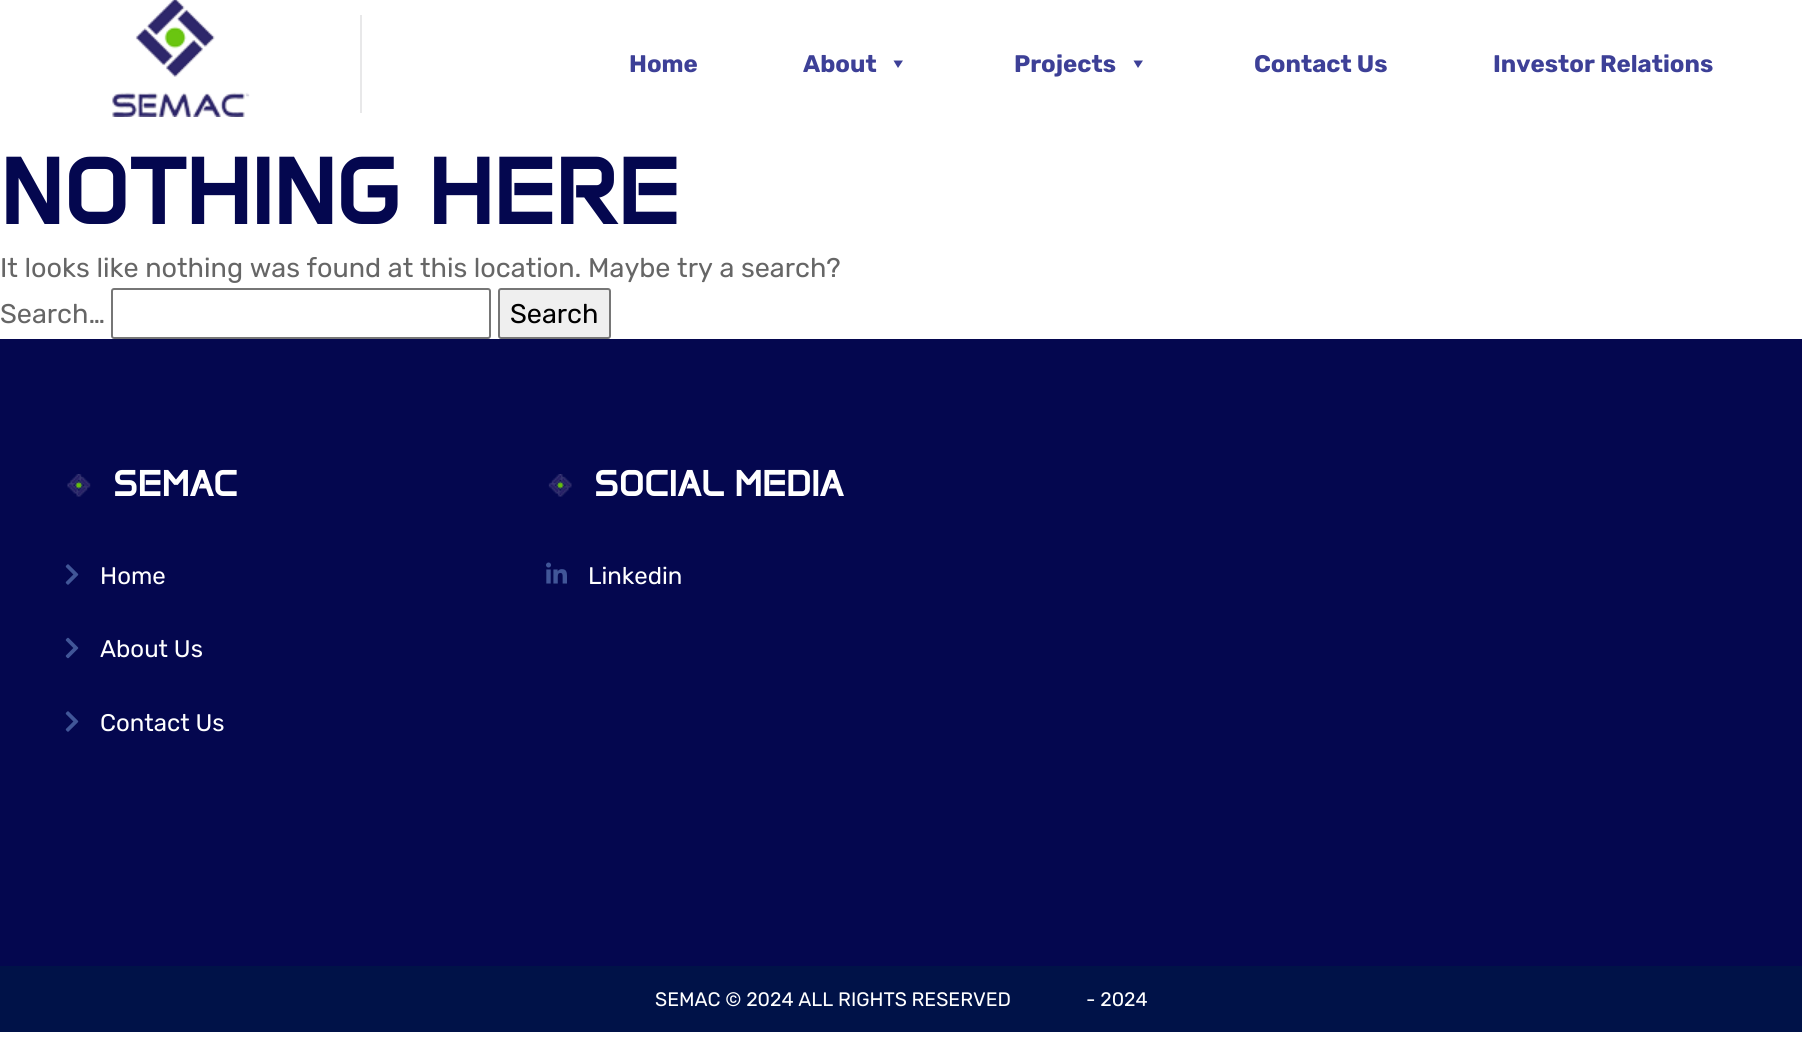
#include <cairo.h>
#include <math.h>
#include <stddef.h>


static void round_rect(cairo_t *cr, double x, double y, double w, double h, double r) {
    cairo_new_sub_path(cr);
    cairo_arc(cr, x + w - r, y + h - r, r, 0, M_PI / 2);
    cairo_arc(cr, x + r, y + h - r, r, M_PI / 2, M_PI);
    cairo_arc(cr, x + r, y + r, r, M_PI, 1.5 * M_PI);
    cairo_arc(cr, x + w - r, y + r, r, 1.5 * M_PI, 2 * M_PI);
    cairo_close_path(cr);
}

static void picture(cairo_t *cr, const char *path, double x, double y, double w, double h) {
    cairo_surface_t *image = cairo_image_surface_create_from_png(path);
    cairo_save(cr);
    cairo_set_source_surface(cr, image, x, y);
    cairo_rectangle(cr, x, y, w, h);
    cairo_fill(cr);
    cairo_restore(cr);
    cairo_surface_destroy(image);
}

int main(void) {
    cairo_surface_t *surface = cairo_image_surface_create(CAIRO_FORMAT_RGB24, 1802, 1064);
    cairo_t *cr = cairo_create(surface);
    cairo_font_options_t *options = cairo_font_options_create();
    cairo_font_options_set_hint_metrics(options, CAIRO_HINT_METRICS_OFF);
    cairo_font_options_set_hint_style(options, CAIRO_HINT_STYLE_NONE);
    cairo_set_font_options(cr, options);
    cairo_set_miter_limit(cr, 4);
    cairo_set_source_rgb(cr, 1, 1, 1);
    cairo_paint(cr);
    picture(cr, "img1.png", 112, 0, 138, 117);
    cairo_set_source_rgb(cr, 0.91, 0.91, 0.914);
    cairo_rectangle(cr, 360, 15, 2, 98);
    cairo_fill(cr);
    cairo_select_font_face(cr, "Rubik", CAIRO_FONT_SLANT_NORMAL, CAIRO_FONT_WEIGHT_BOLD);
    cairo_set_font_size(cr, 24);
    cairo_set_source_rgb(cr, 0.239, 0.251, 0.592);
    cairo_move_to(cr, 629, 72);
    cairo_show_text(cr, "Home");
    cairo_move_to(cr, 803, 72);
    cairo_show_text(cr, "About");
    cairo_new_path(cr);
    cairo_move_to(cr, 903, 60.5);
    cairo_line_to(cr, 898, 68);
    cairo_line_to(cr, 893.5, 60.5);
    cairo_close_path(cr);
    cairo_fill(cr);
    cairo_move_to(cr, 1014, 72);
    cairo_show_text(cr, "Projects");
    cairo_new_path(cr);
    cairo_move_to(cr, 1143, 60.5);
    cairo_line_to(cr, 1138, 68);
    cairo_line_to(cr, 1133.5, 60.5);
    cairo_close_path(cr);
    cairo_fill(cr);
    cairo_move_to(cr, 1254, 72);
    cairo_show_text(cr, "Contact Us");
    cairo_move_to(cr, 1493, 72);
    cairo_show_text(cr, "Investor Relations");
    cairo_select_font_face(cr, "Anta", CAIRO_FONT_SLANT_NORMAL, CAIRO_FONT_WEIGHT_BOLD);
    cairo_set_font_size(cr, 93);
    cairo_set_source_rgb(cr, 0.016, 0.031, 0.31);
    cairo_move_to(cr, 0, 224);
    cairo_show_text(cr, "NOTHING HERE");
    cairo_select_font_face(cr, "Rubik", CAIRO_FONT_SLANT_NORMAL, CAIRO_FONT_WEIGHT_NORMAL);
    cairo_set_font_size(cr, 27);
    cairo_set_source_rgb(cr, 0.4, 0.4, 0.4);
    cairo_move_to(cr, 0, 277);
    cairo_show_text(cr, "It looks like nothing was found at this location. Maybe try a search?");
    cairo_move_to(cr, 0, 323);
    cairo_show_text(cr, "Search…");
    round_rect(cr, 112, 289, 378, 49, 2);
    cairo_set_source_rgb(cr, 0.463, 0.463, 0.463);
    cairo_stroke(cr);
    cairo_set_source_rgb(cr, 0.937, 0.937, 0.937);
    round_rect(cr, 499, 289, 111, 49, 2);
    cairo_fill_preserve(cr);
    cairo_set_source_rgb(cr, 0.463, 0.463, 0.463);
    cairo_stroke(cr);
    cairo_set_source_rgb(cr, 0, 0, 0);
    cairo_move_to(cr, 510, 323);
    cairo_show_text(cr, "Search");
    cairo_set_source_rgb(cr, 0.016, 0.031, 0.31);
    cairo_rectangle(cr, 0, 339, 1802, 627);
    cairo_fill(cr);
    picture(cr, "img2.png", 67, 474, 24, 23);
    cairo_select_font_face(cr, "Anta", CAIRO_FONT_SLANT_NORMAL, CAIRO_FONT_WEIGHT_BOLD);
    cairo_set_font_size(cr, 36);
    cairo_set_source_rgb(cr, 1, 1, 1);
    cairo_move_to(cr, 113, 496);
    cairo_show_text(cr, "SEMAC");
    picture(cr, "img3.png", 65, 564, 14, 21);
    cairo_select_font_face(cr, "Rubik", CAIRO_FONT_SLANT_NORMAL, CAIRO_FONT_WEIGHT_NORMAL);
    cairo_set_font_size(cr, 24);
    cairo_move_to(cr, 100, 584);
    cairo_show_text(cr, "Home");
    picture(cr, "img4.png", 65, 637, 14, 22);
    cairo_move_to(cr, 100, 657);
    cairo_show_text(cr, "About Us");
    picture(cr, "img3.png", 65, 711, 14, 21);
    cairo_move_to(cr, 100, 731);
    cairo_show_text(cr, "Contact Us");
    picture(cr, "img5.png", 548, 474, 24, 23);
    cairo_select_font_face(cr, "Anta", CAIRO_FONT_SLANT_NORMAL, CAIRO_FONT_WEIGHT_BOLD);
    cairo_set_font_size(cr, 36);
    cairo_move_to(cr, 594, 496);
    cairo_show_text(cr, "SOCIAL MEDIA");
    picture(cr, "img6.png", 546, 562, 21, 22);
    cairo_select_font_face(cr, "Rubik", CAIRO_FONT_SLANT_NORMAL, CAIRO_FONT_WEIGHT_NORMAL);
    cairo_set_font_size(cr, 24);
    cairo_move_to(cr, 588, 584);
    cairo_show_text(cr, "Linkedin");
    cairo_set_source_rgb(cr, 0, 0.071, 0.282);
    cairo_rectangle(cr, 0, 966, 1802, 66);
    cairo_fill(cr);
    cairo_set_font_size(cr, 19.5);
    cairo_set_source_rgb(cr, 1, 1, 1);
    cairo_move_to(cr, 655, 1006);
    cairo_show_text(cr, "SEMAC © 2024 ALL RIGHTS RESERVED");
    cairo_move_to(cr, 1086, 1006);
    cairo_show_text(cr, "- 2024");
    cairo_surface_write_to_png(surface, "page.png");
    cairo_font_options_destroy(options);
    cairo_destroy(cr);
    cairo_surface_destroy(surface);
    return 0;
}
